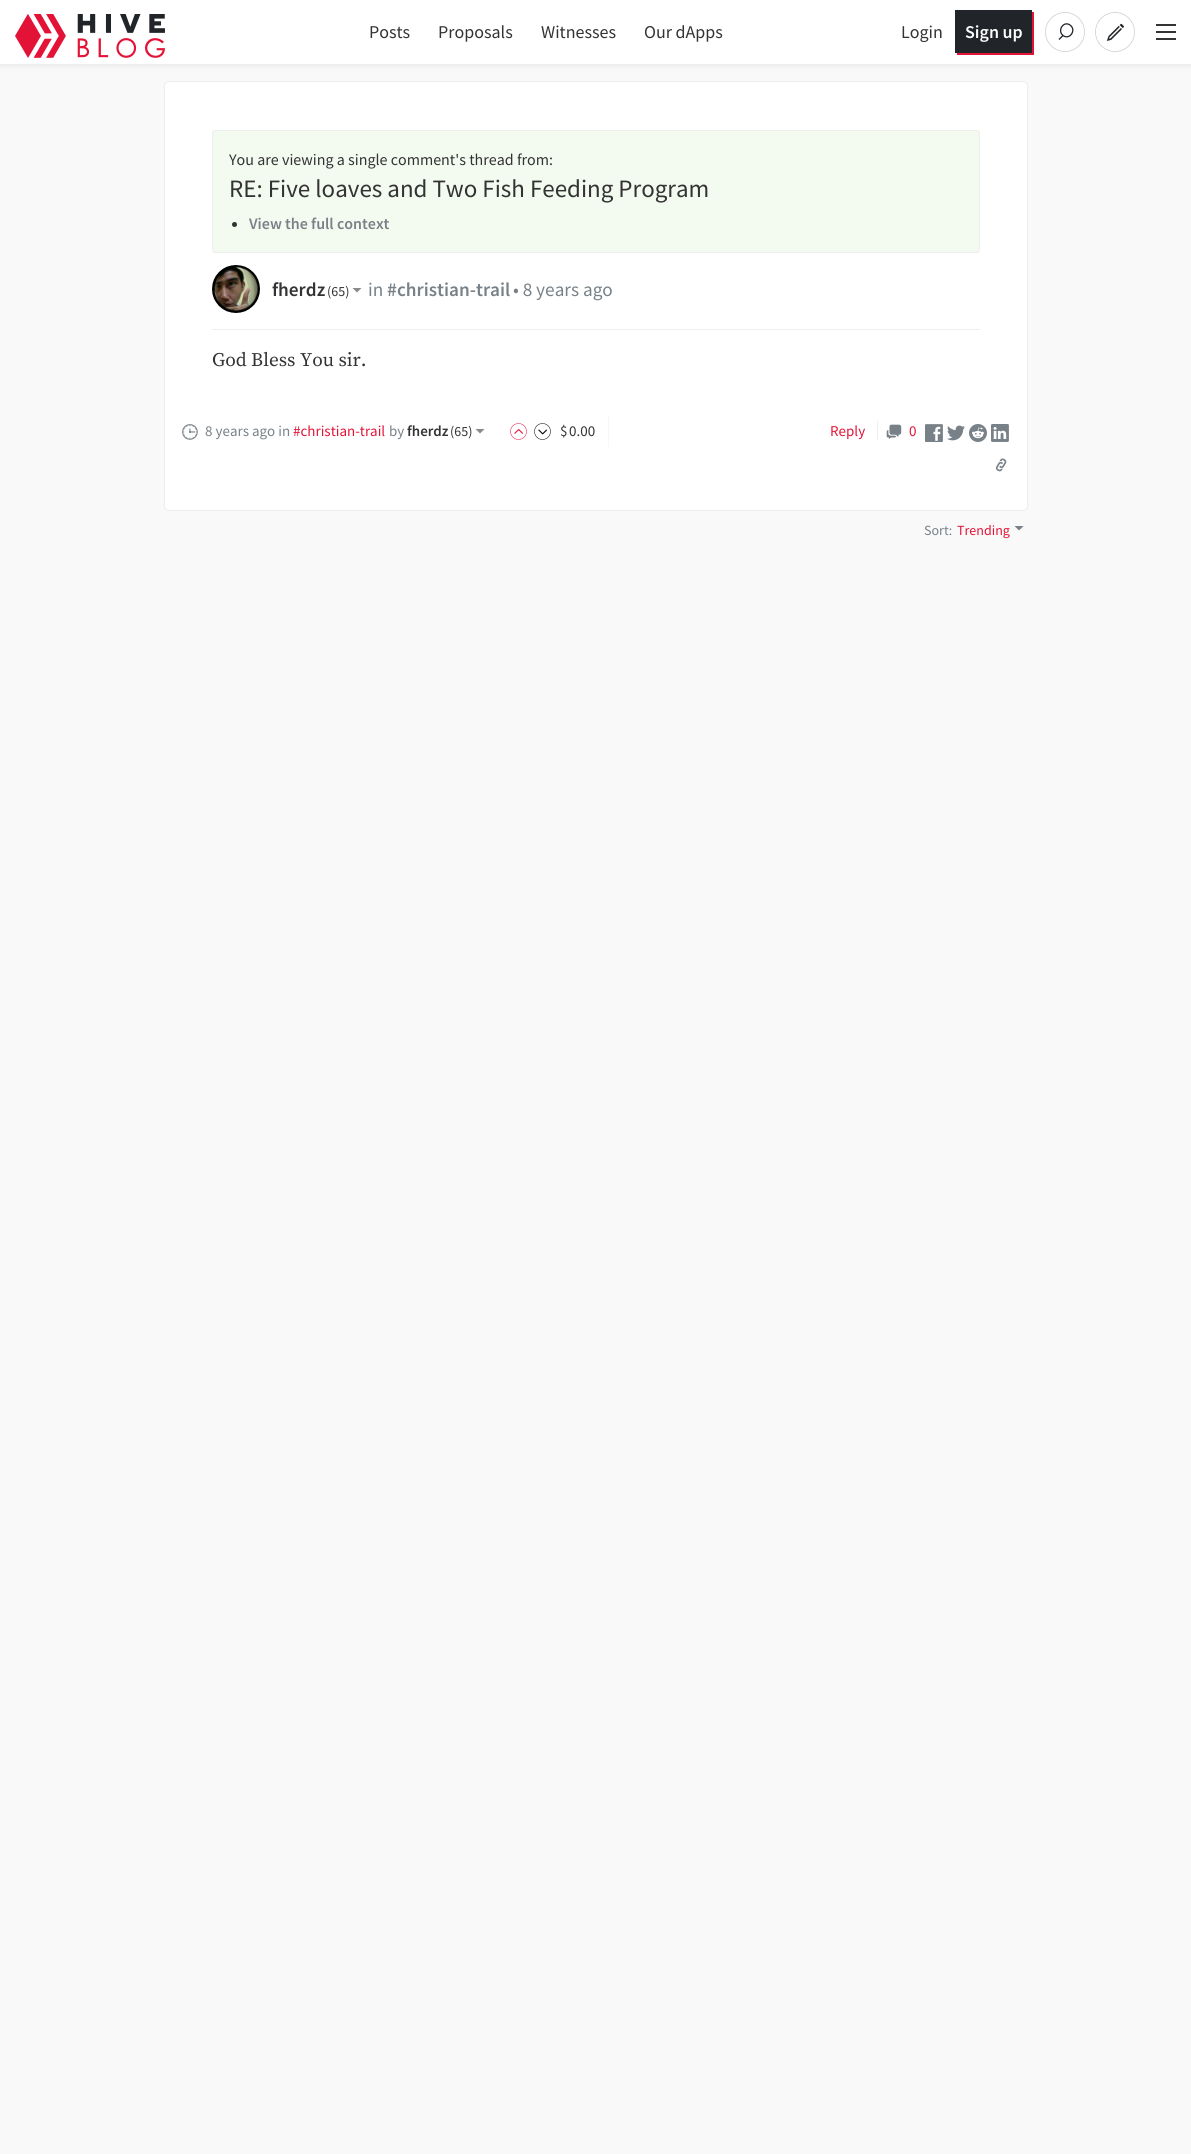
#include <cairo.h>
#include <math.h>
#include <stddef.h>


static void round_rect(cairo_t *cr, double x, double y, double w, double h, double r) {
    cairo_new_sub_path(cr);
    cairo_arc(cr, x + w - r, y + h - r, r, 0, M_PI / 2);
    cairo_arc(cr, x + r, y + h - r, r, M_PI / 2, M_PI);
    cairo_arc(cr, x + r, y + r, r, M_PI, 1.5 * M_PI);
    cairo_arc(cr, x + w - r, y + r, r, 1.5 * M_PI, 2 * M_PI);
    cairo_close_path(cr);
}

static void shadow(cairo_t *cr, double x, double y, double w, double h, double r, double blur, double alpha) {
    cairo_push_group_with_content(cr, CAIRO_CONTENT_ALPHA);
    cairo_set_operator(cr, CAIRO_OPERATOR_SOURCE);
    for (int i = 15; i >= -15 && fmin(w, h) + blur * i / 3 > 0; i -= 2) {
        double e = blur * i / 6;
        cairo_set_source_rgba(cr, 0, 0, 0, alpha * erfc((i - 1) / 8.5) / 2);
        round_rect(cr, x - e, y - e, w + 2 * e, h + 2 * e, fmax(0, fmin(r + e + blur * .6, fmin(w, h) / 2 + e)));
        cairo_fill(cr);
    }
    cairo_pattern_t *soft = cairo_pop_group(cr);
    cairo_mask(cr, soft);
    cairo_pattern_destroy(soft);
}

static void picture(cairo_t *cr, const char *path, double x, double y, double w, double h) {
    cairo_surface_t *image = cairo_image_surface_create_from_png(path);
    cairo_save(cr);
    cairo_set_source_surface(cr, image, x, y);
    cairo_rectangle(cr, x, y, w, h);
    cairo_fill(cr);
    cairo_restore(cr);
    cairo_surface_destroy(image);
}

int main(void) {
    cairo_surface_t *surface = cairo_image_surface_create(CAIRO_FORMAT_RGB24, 1191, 2154);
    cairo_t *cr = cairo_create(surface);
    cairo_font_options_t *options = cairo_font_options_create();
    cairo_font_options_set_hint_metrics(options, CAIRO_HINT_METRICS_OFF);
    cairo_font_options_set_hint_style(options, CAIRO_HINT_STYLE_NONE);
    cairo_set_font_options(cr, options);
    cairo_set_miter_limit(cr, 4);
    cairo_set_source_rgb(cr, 0.973, 0.973, 0.973);
    cairo_paint(cr);
    cairo_set_source_rgb(cr, 0, 0, 0);
    shadow(cr, 0, 2, 1191, 65, 0, 2, 0.05);
    cairo_set_source_rgb(cr, 1, 1, 1);
    cairo_rectangle(cr, 0, 0, 1191, 64);
    cairo_fill(cr);
    cairo_set_source_rgb(cr, 0.933, 0.933, 0.933);
    cairo_rectangle(cr, 0, 64, 1191, 1);
    cairo_fill(cr);
    picture(cr, "img1.png", 15, 14, 150, 44);
    cairo_select_font_face(cr, "Source Sans Pro", CAIRO_FONT_SLANT_NORMAL, CAIRO_FONT_WEIGHT_NORMAL);
    cairo_set_font_size(cr, 18);
    cairo_set_source_rgb(cr, 0.2, 0.2, 0.2);
    cairo_move_to(cr, 369, 38);
    cairo_show_text(cr, "Posts");
    cairo_move_to(cr, 438, 38);
    cairo_show_text(cr, "Proposals");
    cairo_move_to(cr, 541, 38);
    cairo_show_text(cr, "Witnesses");
    cairo_move_to(cr, 644, 38);
    cairo_show_text(cr, "Our dApps");
    cairo_move_to(cr, 901, 38);
    cairo_show_text(cr, "Login");
    cairo_set_source_rgb(cr, 0.89, 0.075, 0.216);
    cairo_new_path(cr);
    cairo_move_to(cr, 957, 53);
    cairo_line_to(cr, 957, 55);
    cairo_line_to(cr, 1034, 55);
    cairo_line_to(cr, 1034, 12);
    cairo_line_to(cr, 1032, 12);
    cairo_line_to(cr, 1032, 53);
    cairo_close_path(cr);
    cairo_fill(cr);
    cairo_set_source_rgb(cr, 0.129, 0.145, 0.161);
    cairo_rectangle(cr, 955, 10, 77, 43);
    cairo_fill(cr);
    cairo_select_font_face(cr, "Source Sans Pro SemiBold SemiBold", CAIRO_FONT_SLANT_NORMAL, CAIRO_FONT_WEIGHT_NORMAL);
    cairo_set_source_rgb(cr, 0.988, 0.988, 0.988);
    cairo_move_to(cr, 965, 38);
    cairo_show_text(cr, "Sign up");
    cairo_new_path(cr);
    cairo_arc(cr, 1065, 32, 19.5, 0, 2 * M_PI);
    cairo_set_source_rgb(cr, 0.792, 0.792, 0.792);
    cairo_set_line_width(cr, 0.7);
    cairo_stroke(cr);
    cairo_new_path(cr);
    cairo_move_to(cr, 1063, 35.5);
    cairo_line_to(cr, 1059, 39.5);
    cairo_line_to(cr, 1063, 35.5);
    cairo_curve_to(cr, 1057, 30.5, 1063.5, 20.5, 1070, 25);
    cairo_curve_to(cr, 1077, 30, 1069.5, 40.5, 1063, 35.5);
    cairo_close_path(cr);
    cairo_set_source_rgb(cr, 0.129, 0.145, 0.161);
    cairo_set_line_width(cr, 1.3);
    cairo_stroke(cr);
    picture(cr, "img2.png", 1095, 12, 40, 40);
    cairo_set_source_rgb(cr, 0.2, 0.2, 0.2);
    cairo_rectangle(cr, 1156, 38, 20, 2);
    cairo_fill(cr);
    cairo_rectangle(cr, 1156, 31, 20, 2);
    cairo_fill(cr);
    cairo_rectangle(cr, 1156, 24, 20, 2);
    cairo_fill(cr);
    cairo_set_source_rgb(cr, 1, 1, 1);
    round_rect(cr, 164.5, 81.5, 863, 429, 4.5);
    cairo_fill_preserve(cr);
    cairo_set_source_rgb(cr, 0.933, 0.933, 0.933);
    cairo_set_line_width(cr, 1);
    cairo_stroke(cr);
    cairo_rectangle(cr, 212, 329, 768, 1);
    cairo_fill(cr);
    cairo_set_source_rgb(cr, 0.953, 0.98, 0.941);
    round_rect(cr, 212.5, 130.5, 767, 122, 2.5);
    cairo_fill_preserve(cr);
    cairo_set_source_rgb(cr, 0.933, 0.933, 0.933);
    cairo_stroke(cr);
    cairo_select_font_face(cr, "Source Sans Pro", CAIRO_FONT_SLANT_NORMAL, CAIRO_FONT_WEIGHT_NORMAL);
    cairo_set_font_size(cr, 16);
    cairo_set_source_rgb(cr, 0.2, 0.2, 0.2);
    cairo_move_to(cr, 229, 165);
    cairo_show_text(cr, "You are viewing a single comment's thread from:");
    cairo_set_font_size(cr, 25);
    cairo_move_to(cr, 229, 197);
    cairo_show_text(cr, "RE: Five loaves and Two Fish Feeding Program");
    cairo_new_path(cr);
    cairo_arc(cr, 234.5, 224.5, 2.5, 0, 2 * M_PI);
    cairo_fill(cr);
    cairo_select_font_face(cr, "Source Sans Pro SemiBold SemiBold", CAIRO_FONT_SLANT_NORMAL, CAIRO_FONT_WEIGHT_NORMAL);
    cairo_set_font_size(cr, 16);
    cairo_set_source_rgb(cr, 0.471, 0.506, 0.529);
    cairo_move_to(cr, 249, 229);
    cairo_show_text(cr, "View the full context");
    picture(cr, "img3.png", 212, 265, 48, 48);
    cairo_set_font_size(cr, 19.25);
    cairo_set_source_rgb(cr, 0.2, 0.2, 0.2);
    cairo_move_to(cr, 272, 296);
    cairo_show_text(cr, "fherdz");
    cairo_select_font_face(cr, "Source Sans Pro", CAIRO_FONT_SLANT_NORMAL, CAIRO_FONT_WEIGHT_NORMAL);
    cairo_set_font_size(cr, 14);
    cairo_move_to(cr, 327, 296);
    cairo_show_text(cr, "(65)");
    cairo_set_source_rgb(cr, 0.541, 0.541, 0.541);
    cairo_new_path(cr);
    cairo_move_to(cr, 352.5, 288);
    cairo_line_to(cr, 357, 292.5);
    cairo_line_to(cr, 361.5, 288);
    cairo_close_path(cr);
    cairo_fill(cr);
    cairo_set_font_size(cr, 19.25);
    cairo_set_source_rgb(cr, 0.471, 0.506, 0.529);
    cairo_move_to(cr, 368, 296);
    cairo_show_text(cr, "in");
    cairo_select_font_face(cr, "Source Sans Pro SemiBold SemiBold", CAIRO_FONT_SLANT_NORMAL, CAIRO_FONT_WEIGHT_NORMAL);
    cairo_move_to(cr, 387, 296);
    cairo_show_text(cr, "#christian-trail");
    cairo_select_font_face(cr, "Source Sans Pro", CAIRO_FONT_SLANT_NORMAL, CAIRO_FONT_WEIGHT_NORMAL);
    cairo_move_to(cr, 513, 296);
    cairo_show_text(cr, "• 8 years ago");
    cairo_select_font_face(cr, "Source Serif Pro", CAIRO_FONT_SLANT_NORMAL, CAIRO_FONT_WEIGHT_NORMAL);
    cairo_set_source_rgb(cr, 0.2, 0.2, 0.2);
    cairo_move_to(cr, 212, 366);
    cairo_show_text(cr, "God Bless You sir.");
    picture(cr, "img4.png", 182, 424, 16, 16);
    cairo_select_font_face(cr, "Source Sans Pro", CAIRO_FONT_SLANT_NORMAL, CAIRO_FONT_WEIGHT_NORMAL);
    cairo_set_font_size(cr, 15);
    cairo_set_source_rgb(cr, 0.471, 0.506, 0.529);
    cairo_move_to(cr, 205, 436);
    cairo_show_text(cr, "8 years ago in");
    cairo_set_source_rgb(cr, 0.89, 0.075, 0.216);
    cairo_move_to(cr, 293, 436);
    cairo_show_text(cr, "#christian-trail");
    cairo_set_source_rgb(cr, 0.471, 0.506, 0.529);
    cairo_move_to(cr, 389, 436);
    cairo_show_text(cr, "by");
    cairo_select_font_face(cr, "Source Sans Pro SemiBold SemiBold", CAIRO_FONT_SLANT_NORMAL, CAIRO_FONT_WEIGHT_NORMAL);
    cairo_set_source_rgb(cr, 0.2, 0.2, 0.2);
    cairo_move_to(cr, 407, 436);
    cairo_show_text(cr, "fherdz");
    cairo_select_font_face(cr, "Source Sans Pro", CAIRO_FONT_SLANT_NORMAL, CAIRO_FONT_WEIGHT_NORMAL);
    cairo_set_font_size(cr, 14);
    cairo_move_to(cr, 450, 436);
    cairo_show_text(cr, "(65)");
    cairo_set_source_rgb(cr, 0.541, 0.541, 0.541);
    cairo_new_path(cr);
    cairo_move_to(cr, 475.5, 429);
    cairo_line_to(cr, 480, 433.5);
    cairo_line_to(cr, 484.5, 429);
    cairo_close_path(cr);
    cairo_fill(cr);
    cairo_set_source_rgb(cr, 0.965, 0.965, 0.965);
    cairo_rectangle(cr, 608, 415, 1, 32);
    cairo_fill(cr);
    picture(cr, "img5.png", 510, 423, 17, 17);
    picture(cr, "img6.png", 534, 423, 17, 17);
    cairo_set_font_size(cr, 15);
    cairo_set_source_rgb(cr, 0.2, 0.2, 0.2);
    cairo_move_to(cr, 560, 436);
    cairo_show_text(cr, "$");
    cairo_move_to(cr, 569, 436);
    cairo_show_text(cr, "0.00");
    cairo_set_source_rgb(cr, 0.89, 0.075, 0.216);
    cairo_move_to(cr, 830, 436);
    cairo_show_text(cr, "Reply");
    cairo_set_source_rgb(cr, 0.933, 0.933, 0.933);
    cairo_rectangle(cr, 877, 421, 1, 19);
    cairo_fill(cr);
    picture(cr, "img7.png", 886, 424, 16, 15);
    cairo_set_source_rgb(cr, 0.89, 0.075, 0.216);
    cairo_move_to(cr, 909, 436);
    cairo_show_text(cr, "0");
    picture(cr, "img8.png", 925, 424, 18, 18);
    picture(cr, "img9.png", 947, 425, 18, 16);
    picture(cr, "img10.png", 969, 424, 18, 18);
    picture(cr, "img11.png", 991, 424, 18, 18);
    picture(cr, "img12.png", 995, 458, 12, 14);
    cairo_set_font_size(cr, 14);
    cairo_set_source_rgb(cr, 0.471, 0.506, 0.529);
    cairo_move_to(cr, 924, 535);
    cairo_show_text(cr, "Sort:");
    cairo_set_source_rgb(cr, 0.89, 0.075, 0.216);
    cairo_move_to(cr, 957, 535);
    cairo_show_text(cr, "Trending");
    cairo_set_source_rgb(cr, 0.471, 0.506, 0.529);
    cairo_new_path(cr);
    cairo_move_to(cr, 1014.5, 526);
    cairo_line_to(cr, 1019, 530.5);
    cairo_line_to(cr, 1023.5, 526);
    cairo_close_path(cr);
    cairo_fill(cr);
    cairo_surface_write_to_png(surface, "page.png");
    cairo_font_options_destroy(options);
    cairo_destroy(cr);
    cairo_surface_destroy(surface);
    return 0;
}
